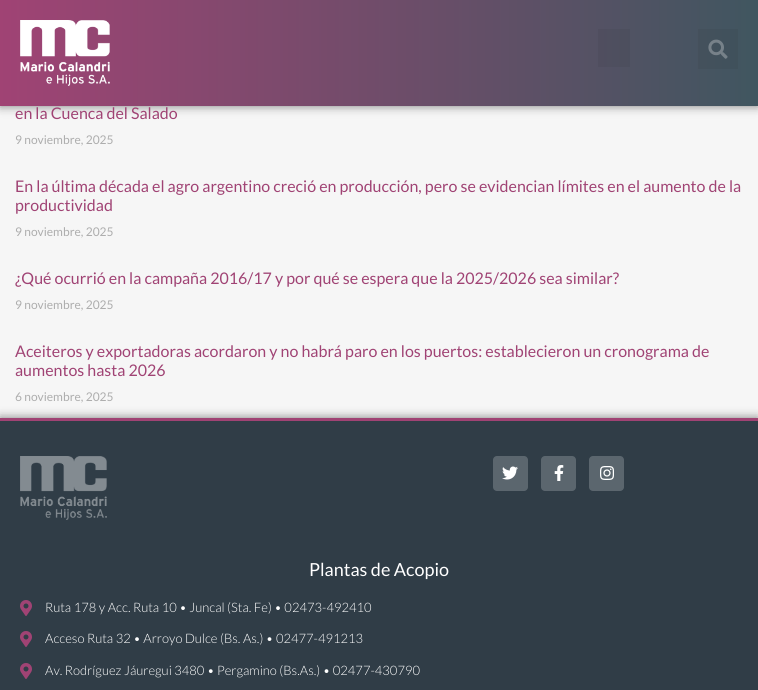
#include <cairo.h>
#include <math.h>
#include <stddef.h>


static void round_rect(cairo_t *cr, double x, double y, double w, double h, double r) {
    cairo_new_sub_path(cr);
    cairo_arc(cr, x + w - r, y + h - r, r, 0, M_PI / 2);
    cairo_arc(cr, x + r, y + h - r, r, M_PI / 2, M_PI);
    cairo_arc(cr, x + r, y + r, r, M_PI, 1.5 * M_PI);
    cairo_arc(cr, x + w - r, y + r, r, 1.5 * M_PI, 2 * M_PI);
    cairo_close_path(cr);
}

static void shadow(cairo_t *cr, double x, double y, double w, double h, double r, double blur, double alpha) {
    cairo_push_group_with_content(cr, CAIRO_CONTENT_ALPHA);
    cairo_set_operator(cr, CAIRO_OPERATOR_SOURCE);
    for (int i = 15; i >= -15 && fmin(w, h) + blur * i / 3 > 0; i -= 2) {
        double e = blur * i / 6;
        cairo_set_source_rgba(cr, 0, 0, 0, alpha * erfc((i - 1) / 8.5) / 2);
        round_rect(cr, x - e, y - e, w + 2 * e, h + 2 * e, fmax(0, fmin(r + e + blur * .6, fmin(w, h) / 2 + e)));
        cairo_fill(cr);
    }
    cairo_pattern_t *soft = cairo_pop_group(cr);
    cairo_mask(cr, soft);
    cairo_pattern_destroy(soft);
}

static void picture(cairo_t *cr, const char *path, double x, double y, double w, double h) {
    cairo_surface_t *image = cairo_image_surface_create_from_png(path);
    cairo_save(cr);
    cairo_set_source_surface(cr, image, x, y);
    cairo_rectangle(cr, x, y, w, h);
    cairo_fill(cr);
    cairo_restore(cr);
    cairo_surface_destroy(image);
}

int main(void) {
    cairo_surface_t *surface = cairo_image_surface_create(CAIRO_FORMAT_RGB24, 758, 690);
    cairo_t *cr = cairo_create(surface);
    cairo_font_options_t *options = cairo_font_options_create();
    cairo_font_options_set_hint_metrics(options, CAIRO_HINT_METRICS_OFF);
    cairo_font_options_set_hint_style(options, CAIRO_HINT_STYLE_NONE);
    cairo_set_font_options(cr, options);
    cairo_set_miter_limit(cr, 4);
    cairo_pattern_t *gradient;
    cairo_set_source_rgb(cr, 0.961, 0.961, 0.961);
    cairo_paint(cr);
    cairo_set_source_rgb(cr, 0, 0, 0);
    shadow(cr, 0, 0, 758, 106, 0, 5, 0.5);
    gradient = cairo_pattern_create_linear(758, 53, 0, 53);
    cairo_pattern_add_color_stop_rgba(gradient, 0, 0.251, 0.337, 0.376, 1);
    cairo_pattern_add_color_stop_rgba(gradient, 1, 0.627, 0.263, 0.455, 1);
    cairo_set_source(cr, gradient);
    cairo_pattern_destroy(gradient);
    cairo_rectangle(cr, 0, 0, 758, 106);
    cairo_fill(cr);
    gradient = cairo_pattern_create_linear(758, 53, 0, 53);
    cairo_pattern_add_color_stop_rgba(gradient, 0, 0.239, 0.322, 0.357, 1);
    cairo_pattern_add_color_stop_rgba(gradient, 1, 0.596, 0.251, 0.431, 1);
    cairo_set_source(cr, gradient);
    cairo_pattern_destroy(gradient);
    cairo_rectangle(cr, 598, 29, 32, 38);
    cairo_fill(cr);
    picture(cr, "img1.png", 20, 20, 90, 66);
    cairo_set_source_rgba(cr, 0, 0, 0, 0.05);
    cairo_rectangle(cr, 698, 29, 40, 40);
    cairo_fill(cr);
    picture(cr, "img2.png", 708, 39, 20, 20);
    cairo_select_font_face(cr, "Lato", CAIRO_FONT_SLANT_NORMAL, CAIRO_FONT_WEIGHT_NORMAL);
    cairo_set_font_size(cr, 16);
    cairo_set_source_rgb(cr, 0.627, 0.263, 0.455);
    cairo_move_to(cr, 15, 119);
    cairo_show_text(cr, "en la Cuenca del Salado");
    cairo_set_font_size(cr, 12);
    cairo_set_source_rgb(cr, 0.678, 0.678, 0.678);
    cairo_move_to(cr, 15, 144);
    cairo_show_text(cr, "9 noviembre, 2025");
    cairo_set_font_size(cr, 16);
    cairo_set_source_rgb(cr, 0.627, 0.263, 0.455);
    cairo_move_to(cr, 15, 192);
    cairo_show_text(cr, "En la última década el agro argentino creció en producción, pero se evidencian límites en el aumento de la");
    cairo_move_to(cr, 15, 211);
    cairo_show_text(cr, "productividad");
    cairo_set_font_size(cr, 12);
    cairo_set_source_rgb(cr, 0.678, 0.678, 0.678);
    cairo_move_to(cr, 15, 236);
    cairo_show_text(cr, "9 noviembre, 2025");
    cairo_set_font_size(cr, 16);
    cairo_set_source_rgb(cr, 0.627, 0.263, 0.455);
    cairo_move_to(cr, 15, 284);
    cairo_show_text(cr, "¿Qué ocurrió en la campaña 2016/17 y por qué se espera que la 2025/2026 sea similar?");
    cairo_set_font_size(cr, 12);
    cairo_set_source_rgb(cr, 0.678, 0.678, 0.678);
    cairo_move_to(cr, 15, 309);
    cairo_show_text(cr, "9 noviembre, 2025");
    cairo_set_font_size(cr, 16);
    cairo_set_source_rgb(cr, 0.627, 0.263, 0.455);
    cairo_move_to(cr, 15, 357);
    cairo_show_text(cr, "Aceiteros y exportadoras acordaron y no habrá paro en los puertos: establecieron un cronograma de");
    cairo_move_to(cr, 15, 376);
    cairo_show_text(cr, "aumentos hasta 2026");
    cairo_set_font_size(cr, 12);
    cairo_set_source_rgb(cr, 0.678, 0.678, 0.678);
    cairo_move_to(cr, 15, 401);
    cairo_show_text(cr, "6 noviembre, 2025");
    cairo_set_source_rgb(cr, 0, 0, 0);
    shadow(cr, 0, 418, 758, 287, 0, 5, 0.5);
    cairo_set_source_rgb(cr, 0.188, 0.239, 0.278);
    cairo_rectangle(cr, 0, 421, 758, 269);
    cairo_fill(cr);
    cairo_set_source_rgb(cr, 0.627, 0.263, 0.455);
    cairo_rectangle(cr, 0, 418, 758, 3);
    cairo_fill(cr);
    picture(cr, "img3.png", 20, 456, 87, 64);
    cairo_set_source_rgb(cr, 0.357, 0.4, 0.431);
    round_rect(cr, 493, 456, 35, 35, 4);
    cairo_fill(cr);
    picture(cr, "img4.png", 502, 466, 16, 14);
    round_rect(cr, 541, 456, 35, 35, 4);
    cairo_fill(cr);
    picture(cr, "img5.png", 554, 465, 10, 16);
    round_rect(cr, 589, 456, 35, 35, 4);
    cairo_fill(cr);
    picture(cr, "img6.png", 600, 466, 14, 14);
    cairo_set_font_size(cr, 18);
    cairo_set_source_rgb(cr, 1, 1, 1);
    cairo_move_to(cr, 309, 576);
    cairo_show_text(cr, "Plantas de Acopio");
    picture(cr, "img7.png", 20, 600, 12, 16);
    cairo_select_font_face(cr, "Lato Light", CAIRO_FONT_SLANT_NORMAL, CAIRO_FONT_WEIGHT_NORMAL);
    cairo_set_font_size(cr, 13);
    cairo_move_to(cr, 45, 612);
    cairo_show_text(cr, "Ruta 178 y Acc. Ruta 10 • Juncal (Sta. Fe) • 02473-492410");
    picture(cr, "img7.png", 20, 631, 12, 16);
    cairo_move_to(cr, 45, 643);
    cairo_show_text(cr, "Acceso Ruta 32 • Arroyo Dulce (Bs. As.) • 02477-491213");
    picture(cr, "img7.png", 20, 663, 12, 16);
    cairo_move_to(cr, 45, 675);
    cairo_show_text(cr, "Av. Rodríguez Jáuregui 3480 • Pergamino (Bs.As.) • 02477-430790");
    cairo_surface_write_to_png(surface, "page.png");
    cairo_font_options_destroy(options);
    cairo_destroy(cr);
    cairo_surface_destroy(surface);
    return 0;
}
